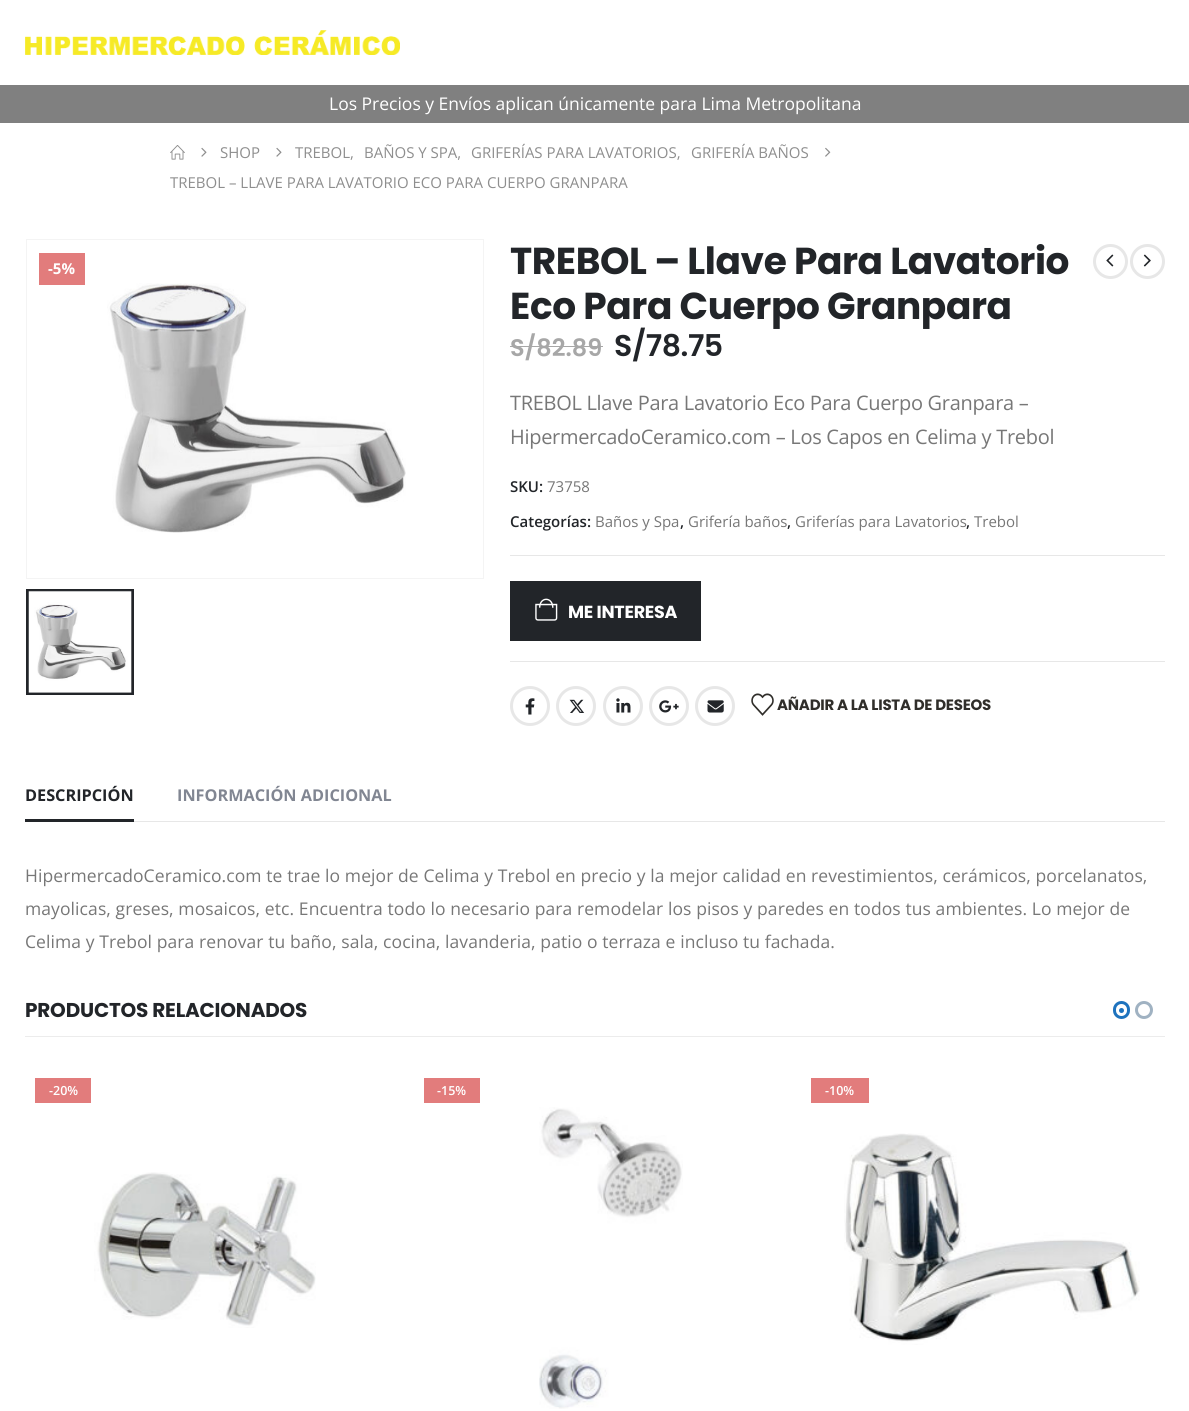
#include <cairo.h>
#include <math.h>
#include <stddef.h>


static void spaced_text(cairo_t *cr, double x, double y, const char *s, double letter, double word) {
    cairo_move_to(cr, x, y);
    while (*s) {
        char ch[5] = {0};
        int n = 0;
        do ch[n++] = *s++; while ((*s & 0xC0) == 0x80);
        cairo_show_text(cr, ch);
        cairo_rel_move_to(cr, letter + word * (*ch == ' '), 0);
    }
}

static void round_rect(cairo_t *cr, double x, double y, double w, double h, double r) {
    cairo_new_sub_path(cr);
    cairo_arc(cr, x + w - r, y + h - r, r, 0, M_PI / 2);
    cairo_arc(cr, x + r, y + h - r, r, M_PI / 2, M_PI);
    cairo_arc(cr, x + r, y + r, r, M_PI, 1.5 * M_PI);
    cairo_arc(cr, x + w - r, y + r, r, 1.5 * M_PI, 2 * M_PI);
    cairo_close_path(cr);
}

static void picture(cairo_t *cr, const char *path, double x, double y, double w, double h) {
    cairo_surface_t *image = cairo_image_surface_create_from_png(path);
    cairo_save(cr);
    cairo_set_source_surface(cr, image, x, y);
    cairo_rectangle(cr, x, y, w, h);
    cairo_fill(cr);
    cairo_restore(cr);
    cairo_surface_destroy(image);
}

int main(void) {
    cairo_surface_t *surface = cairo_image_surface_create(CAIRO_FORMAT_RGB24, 1189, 1411);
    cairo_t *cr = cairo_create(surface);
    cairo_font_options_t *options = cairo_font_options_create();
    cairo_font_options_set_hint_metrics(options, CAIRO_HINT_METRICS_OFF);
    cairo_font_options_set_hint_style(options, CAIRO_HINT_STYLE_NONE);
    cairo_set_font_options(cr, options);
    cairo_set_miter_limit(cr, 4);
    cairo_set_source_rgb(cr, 1, 1, 1);
    cairo_paint(cr);
    picture(cr, "img1.png", 25, 30, 375, 25);
    cairo_set_source_rgb(cr, 0.502, 0.502, 0.502);
    cairo_rectangle(cr, 0, 85, 1189, 38);
    cairo_fill(cr);
    cairo_select_font_face(cr, "Open Sans", CAIRO_FONT_SLANT_NORMAL, CAIRO_FONT_WEIGHT_NORMAL);
    cairo_set_font_size(cr, 17.5);
    cairo_set_source_rgb(cr, 1, 1, 1);
    cairo_move_to(cr, 329, 110);
    cairo_show_text(cr, "Los Precios y Envíos aplican únicamente para Lima Metropolitana");
    picture(cr, "img2.png", 170, 145, 15, 15);
    picture(cr, "img3.png", 201, 147, 6, 10);
    cairo_set_font_size(cr, 15);
    cairo_set_source_rgb(cr, 0.557, 0.557, 0.557);
    cairo_move_to(cr, 220, 158);
    cairo_show_text(cr, "SHOP");
    picture(cr, "img3.png", 276, 147, 6, 10);
    cairo_move_to(cr, 295, 158);
    cairo_show_text(cr, "TREBOL,");
    cairo_move_to(cr, 364, 158);
    cairo_show_text(cr, "BAÑOS Y SPA,");
    cairo_move_to(cr, 471, 158);
    cairo_show_text(cr, "GRIFERÍAS PARA LAVATORIOS,");
    cairo_move_to(cr, 691, 158);
    cairo_show_text(cr, "GRIFERÍA BAÑOS");
    picture(cr, "img4.png", 825, 147, 6, 10);
    cairo_move_to(cr, 170, 188);
    cairo_show_text(cr, "TREBOL – LLAVE PARA LAVATORIO ECO PARA CUERPO GRANPARA");
    cairo_rectangle(cr, 26.5, 239.5, 457, 339);
    cairo_set_source_rgb(cr, 0.957, 0.957, 0.957);
    cairo_set_line_width(cr, 1);
    cairo_stroke(cr);
    picture(cr, "img5.png", 107, 283, 299, 250);
    cairo_rectangle(cr, 27.5, 590.5, 105, 103);
    cairo_set_source_rgb(cr, 0.133, 0.145, 0.161);
    cairo_set_line_width(cr, 3);
    cairo_stroke(cr);
    picture(cr, "img6.png", 28, 590, 104, 103);
    cairo_set_source_rgb(cr, 0.886, 0.486, 0.486);
    cairo_rectangle(cr, 39, 253, 46, 32);
    cairo_fill(cr);
    cairo_select_font_face(cr, "Open Sans", CAIRO_FONT_SLANT_NORMAL, CAIRO_FONT_WEIGHT_BOLD);
    cairo_set_source_rgb(cr, 1, 1, 1);
    cairo_move_to(cr, 48, 274);
    cairo_show_text(cr, "-5%");
    cairo_select_font_face(cr, "Poppins", CAIRO_FONT_SLANT_NORMAL, CAIRO_FONT_WEIGHT_BOLD);
    cairo_set_font_size(cr, 37.5);
    cairo_set_source_rgb(cr, 0.133, 0.145, 0.161);
    spaced_text(cr, 510, 274, "TREBOL – Llave Para Lavatorio", -0.4, 0);
    spaced_text(cr, 510, 319, "Eco Para Cuerpo Granpara", -0.4, 0);
    cairo_new_path(cr);
    cairo_arc(cr, 1110.5, 261.5, 16, 0, 2 * M_PI);
    cairo_set_source_rgb(cr, 0.906, 0.906, 0.906);
    cairo_stroke(cr);
    picture(cr, "img7.png", 1106, 254, 8, 13);
    cairo_arc(cr, 1147.5, 261.5, 16, 0, 2 * M_PI);
    cairo_stroke(cr);
    picture(cr, "img8.png", 1143, 254, 8, 13);
    cairo_select_font_face(cr, "Poppins SemiBold", CAIRO_FONT_SLANT_NORMAL, CAIRO_FONT_WEIGHT_NORMAL);
    cairo_set_font_size(cr, 24);
    cairo_set_source_rgb(cr, 0.655, 0.655, 0.655);
    cairo_move_to(cr, 510, 356);
    cairo_show_text(cr, "S/82.89");
    cairo_rectangle(cr, 510, 346, 93, 1);
    cairo_fill(cr);
    cairo_set_font_size(cr, 30);
    cairo_set_source_rgb(cr, 0.133, 0.145, 0.161);
    spaced_text(cr, 614, 356, "S/78.75", -0.5, 0);
    cairo_select_font_face(cr, "Open Sans", CAIRO_FONT_SLANT_NORMAL, CAIRO_FONT_WEIGHT_NORMAL);
    cairo_set_font_size(cr, 20);
    cairo_set_source_rgb(cr, 0.467, 0.467, 0.467);
    spaced_text(cr, 510, 410, "TREBOL Llave Para Lavatorio Eco Para Cuerpo Granpara –", -0.3, 0);
    spaced_text(cr, 510, 444, "HipermercadoCeramico.com – Los Capos en Celima y Trebol", -0.3, 0);
    cairo_select_font_face(cr, "Open Sans SemiBold", CAIRO_FONT_SLANT_NORMAL, CAIRO_FONT_WEIGHT_NORMAL);
    cairo_set_font_size(cr, 15);
    cairo_set_source_rgb(cr, 0.133, 0.145, 0.161);
    cairo_move_to(cr, 510, 492);
    cairo_show_text(cr, "SKU:");
    cairo_select_font_face(cr, "Open Sans", CAIRO_FONT_SLANT_NORMAL, CAIRO_FONT_WEIGHT_NORMAL);
    cairo_set_source_rgb(cr, 0.467, 0.467, 0.467);
    cairo_move_to(cr, 547, 492);
    cairo_show_text(cr, "73758");
    cairo_select_font_face(cr, "Open Sans SemiBold", CAIRO_FONT_SLANT_NORMAL, CAIRO_FONT_WEIGHT_NORMAL);
    cairo_set_source_rgb(cr, 0.133, 0.145, 0.161);
    cairo_move_to(cr, 510, 527);
    cairo_show_text(cr, "Categorías:");
    cairo_select_font_face(cr, "Open Sans", CAIRO_FONT_SLANT_NORMAL, CAIRO_FONT_WEIGHT_NORMAL);
    cairo_set_source_rgb(cr, 0.467, 0.467, 0.467);
    cairo_move_to(cr, 595, 527);
    cairo_show_text(cr, "Baños y Spa");
    cairo_select_font_face(cr, "Open Sans SemiBold", CAIRO_FONT_SLANT_NORMAL, CAIRO_FONT_WEIGHT_NORMAL);
    cairo_set_source_rgb(cr, 0.133, 0.145, 0.161);
    cairo_move_to(cr, 680, 527);
    cairo_show_text(cr, ",");
    cairo_select_font_face(cr, "Open Sans", CAIRO_FONT_SLANT_NORMAL, CAIRO_FONT_WEIGHT_NORMAL);
    cairo_set_source_rgb(cr, 0.467, 0.467, 0.467);
    cairo_move_to(cr, 688, 527);
    cairo_show_text(cr, "Grifería baños");
    cairo_select_font_face(cr, "Open Sans SemiBold", CAIRO_FONT_SLANT_NORMAL, CAIRO_FONT_WEIGHT_NORMAL);
    cairo_set_source_rgb(cr, 0.133, 0.145, 0.161);
    cairo_move_to(cr, 787, 527);
    cairo_show_text(cr, ",");
    cairo_select_font_face(cr, "Open Sans", CAIRO_FONT_SLANT_NORMAL, CAIRO_FONT_WEIGHT_NORMAL);
    cairo_set_source_rgb(cr, 0.467, 0.467, 0.467);
    cairo_move_to(cr, 795, 527);
    cairo_show_text(cr, "Griferías para Lavatorios");
    cairo_select_font_face(cr, "Open Sans SemiBold", CAIRO_FONT_SLANT_NORMAL, CAIRO_FONT_WEIGHT_NORMAL);
    cairo_set_source_rgb(cr, 0.133, 0.145, 0.161);
    cairo_move_to(cr, 966, 527);
    cairo_show_text(cr, ",");
    cairo_select_font_face(cr, "Open Sans", CAIRO_FONT_SLANT_NORMAL, CAIRO_FONT_WEIGHT_NORMAL);
    cairo_set_source_rgb(cr, 0.467, 0.467, 0.467);
    cairo_move_to(cr, 974, 527);
    cairo_show_text(cr, "Trebol");
    cairo_set_source_rgb(cr, 0.906, 0.906, 0.906);
    cairo_rectangle(cr, 510, 555, 655, 1);
    cairo_fill(cr);
    cairo_rectangle(cr, 510, 661, 655, 1);
    cairo_fill(cr);
    cairo_set_source_rgb(cr, 0.133, 0.145, 0.161);
    cairo_rectangle(cr, 510, 581, 191, 60);
    cairo_fill(cr);
    picture(cr, "img9.png", 535, 598, 23, 23);
    cairo_select_font_face(cr, "Poppins", CAIRO_FONT_SLANT_NORMAL, CAIRO_FONT_WEIGHT_BOLD);
    cairo_set_font_size(cr, 17.5);
    cairo_set_source_rgb(cr, 1, 1, 1);
    spaced_text(cr, 568, 618, "ME INTERESA", -0.25, 0);
    cairo_new_path(cr);
    cairo_arc(cr, 530, 706, 18.5, 0, 2 * M_PI);
    cairo_set_source_rgb(cr, 0.906, 0.906, 0.906);
    cairo_stroke(cr);
    picture(cr, "img10.png", 525, 698, 10, 17);
    cairo_arc(cr, 576, 706, 18.5, 0, 2 * M_PI);
    cairo_stroke(cr);
    picture(cr, "img11.png", 569, 699, 16, 14);
    cairo_arc(cr, 623, 706, 18.5, 0, 2 * M_PI);
    cairo_stroke(cr);
    picture(cr, "img12.png", 616, 698, 15, 15);
    cairo_arc(cr, 669, 706, 18.5, 0, 2 * M_PI);
    cairo_stroke(cr);
    picture(cr, "img13.png", 659, 700, 20, 13);
    cairo_arc(cr, 715, 706, 18.5, 0, 2 * M_PI);
    cairo_stroke(cr);
    picture(cr, "img14.png", 707, 700, 17, 13);
    picture(cr, "img15.png", 751, 693, 23, 23);
    cairo_set_font_size(cr, 15);
    cairo_set_source_rgb(cr, 0.188, 0.18, 0.165);
    spaced_text(cr, 777, 710, "AÑADIR A LA LISTA DE DESEOS", -0.25, 0);
    cairo_set_source_rgb(cr, 0.133, 0.145, 0.161);
    cairo_rectangle(cr, 25, 819, 109, 3);
    cairo_fill(cr);
    cairo_select_font_face(cr, "Open Sans", CAIRO_FONT_SLANT_NORMAL, CAIRO_FONT_WEIGHT_BOLD);
    cairo_set_font_size(cr, 16.25);
    cairo_move_to(cr, 25, 801);
    cairo_show_text(cr, "DESCRIPCIÓN");
    cairo_set_source_rgb(cr, 0.506, 0.525, 0.573);
    cairo_move_to(cr, 177, 801);
    cairo_show_text(cr, "INFORMACIÓN ADICIONAL");
    cairo_set_source_rgb(cr, 0.906, 0.906, 0.906);
    cairo_rectangle(cr, 134, 821, 1031, 1);
    cairo_fill(cr);
    cairo_select_font_face(cr, "Open Sans", CAIRO_FONT_SLANT_NORMAL, CAIRO_FONT_WEIGHT_NORMAL);
    cairo_set_font_size(cr, 17.5);
    cairo_set_source_rgb(cr, 0.467, 0.467, 0.467);
    spaced_text(cr, 25, 882, "HipermercadoCeramico.com te trae lo mejor de Celima y Trebol en precio y la mejor calidad en revestimientos, cerámicos, porcelanatos,", 0.09, 0);
    spaced_text(cr, 25, 915, "mayolicas, greses, mosaicos, etc. Encuentra todo lo necesario para remodelar los pisos y paredes en todos tus ambientes. Lo mejor de", 0.09, 0);
    spaced_text(cr, 25, 948, "Celima y Trebol para renovar tu baño, sala, cocina, lavanderia, patio o terraza e incluso tu fachada.", 0.09, 0);
    cairo_set_source_rgb(cr, 0.922, 0.922, 0.922);
    cairo_rectangle(cr, 25, 1036, 1140, 1);
    cairo_fill(cr);
    cairo_select_font_face(cr, "Poppins", CAIRO_FONT_SLANT_NORMAL, CAIRO_FONT_WEIGHT_BOLD);
    cairo_set_font_size(cr, 20);
    cairo_set_source_rgb(cr, 0.133, 0.145, 0.161);
    spaced_text(cr, 25, 1017, "PRODUCTOS RELACIONADOS", -0.2, 0);
    round_rect(cr, 1114.5, 1002.5, 14, 15, 7);
    cairo_set_source_rgb(cr, 0.118, 0.451, 0.745);
    cairo_stroke(cr);
    cairo_arc(cr, 1121.5, 1010.5, 2.5, 0, 2 * M_PI);
    cairo_fill(cr);
    cairo_arc(cr, 1144, 1010, 7.5, 0, 2 * M_PI);
    cairo_set_source_rgb(cr, 0.627, 0.698, 0.761);
    cairo_stroke(cr);
    cairo_set_source_rgb(cr, 0.886, 0.486, 0.486);
    cairo_rectangle(cr, 35, 1078, 56, 25);
    cairo_fill(cr);
    cairo_select_font_face(cr, "Open Sans SemiBold", CAIRO_FONT_SLANT_NORMAL, CAIRO_FONT_WEIGHT_NORMAL);
    cairo_set_font_size(cr, 12.5);
    cairo_set_source_rgb(cr, 1, 1, 1);
    cairo_move_to(cr, 49, 1095);
    cairo_show_text(cr, "-20%");
    picture(cr, "img16.png", 94, 1172, 222, 156);
    cairo_set_source_rgb(cr, 0.886, 0.486, 0.486);
    cairo_rectangle(cr, 424, 1078, 56, 25);
    cairo_fill(cr);
    cairo_set_source_rgb(cr, 1, 1, 1);
    cairo_move_to(cr, 437, 1095);
    cairo_show_text(cr, "-15%");
    picture(cr, "img17.png", 539, 1107, 144, 302);
    cairo_set_source_rgb(cr, 0.886, 0.486, 0.486);
    cairo_rectangle(cr, 811, 1078, 58, 25);
    cairo_fill(cr);
    cairo_set_source_rgb(cr, 1, 1, 1);
    cairo_move_to(cr, 825, 1095);
    cairo_show_text(cr, "-10%");
    picture(cr, "img18.png", 844, 1133, 296, 212);
    cairo_surface_write_to_png(surface, "page.png");
    cairo_font_options_destroy(options);
    cairo_destroy(cr);
    cairo_surface_destroy(surface);
    return 0;
}
